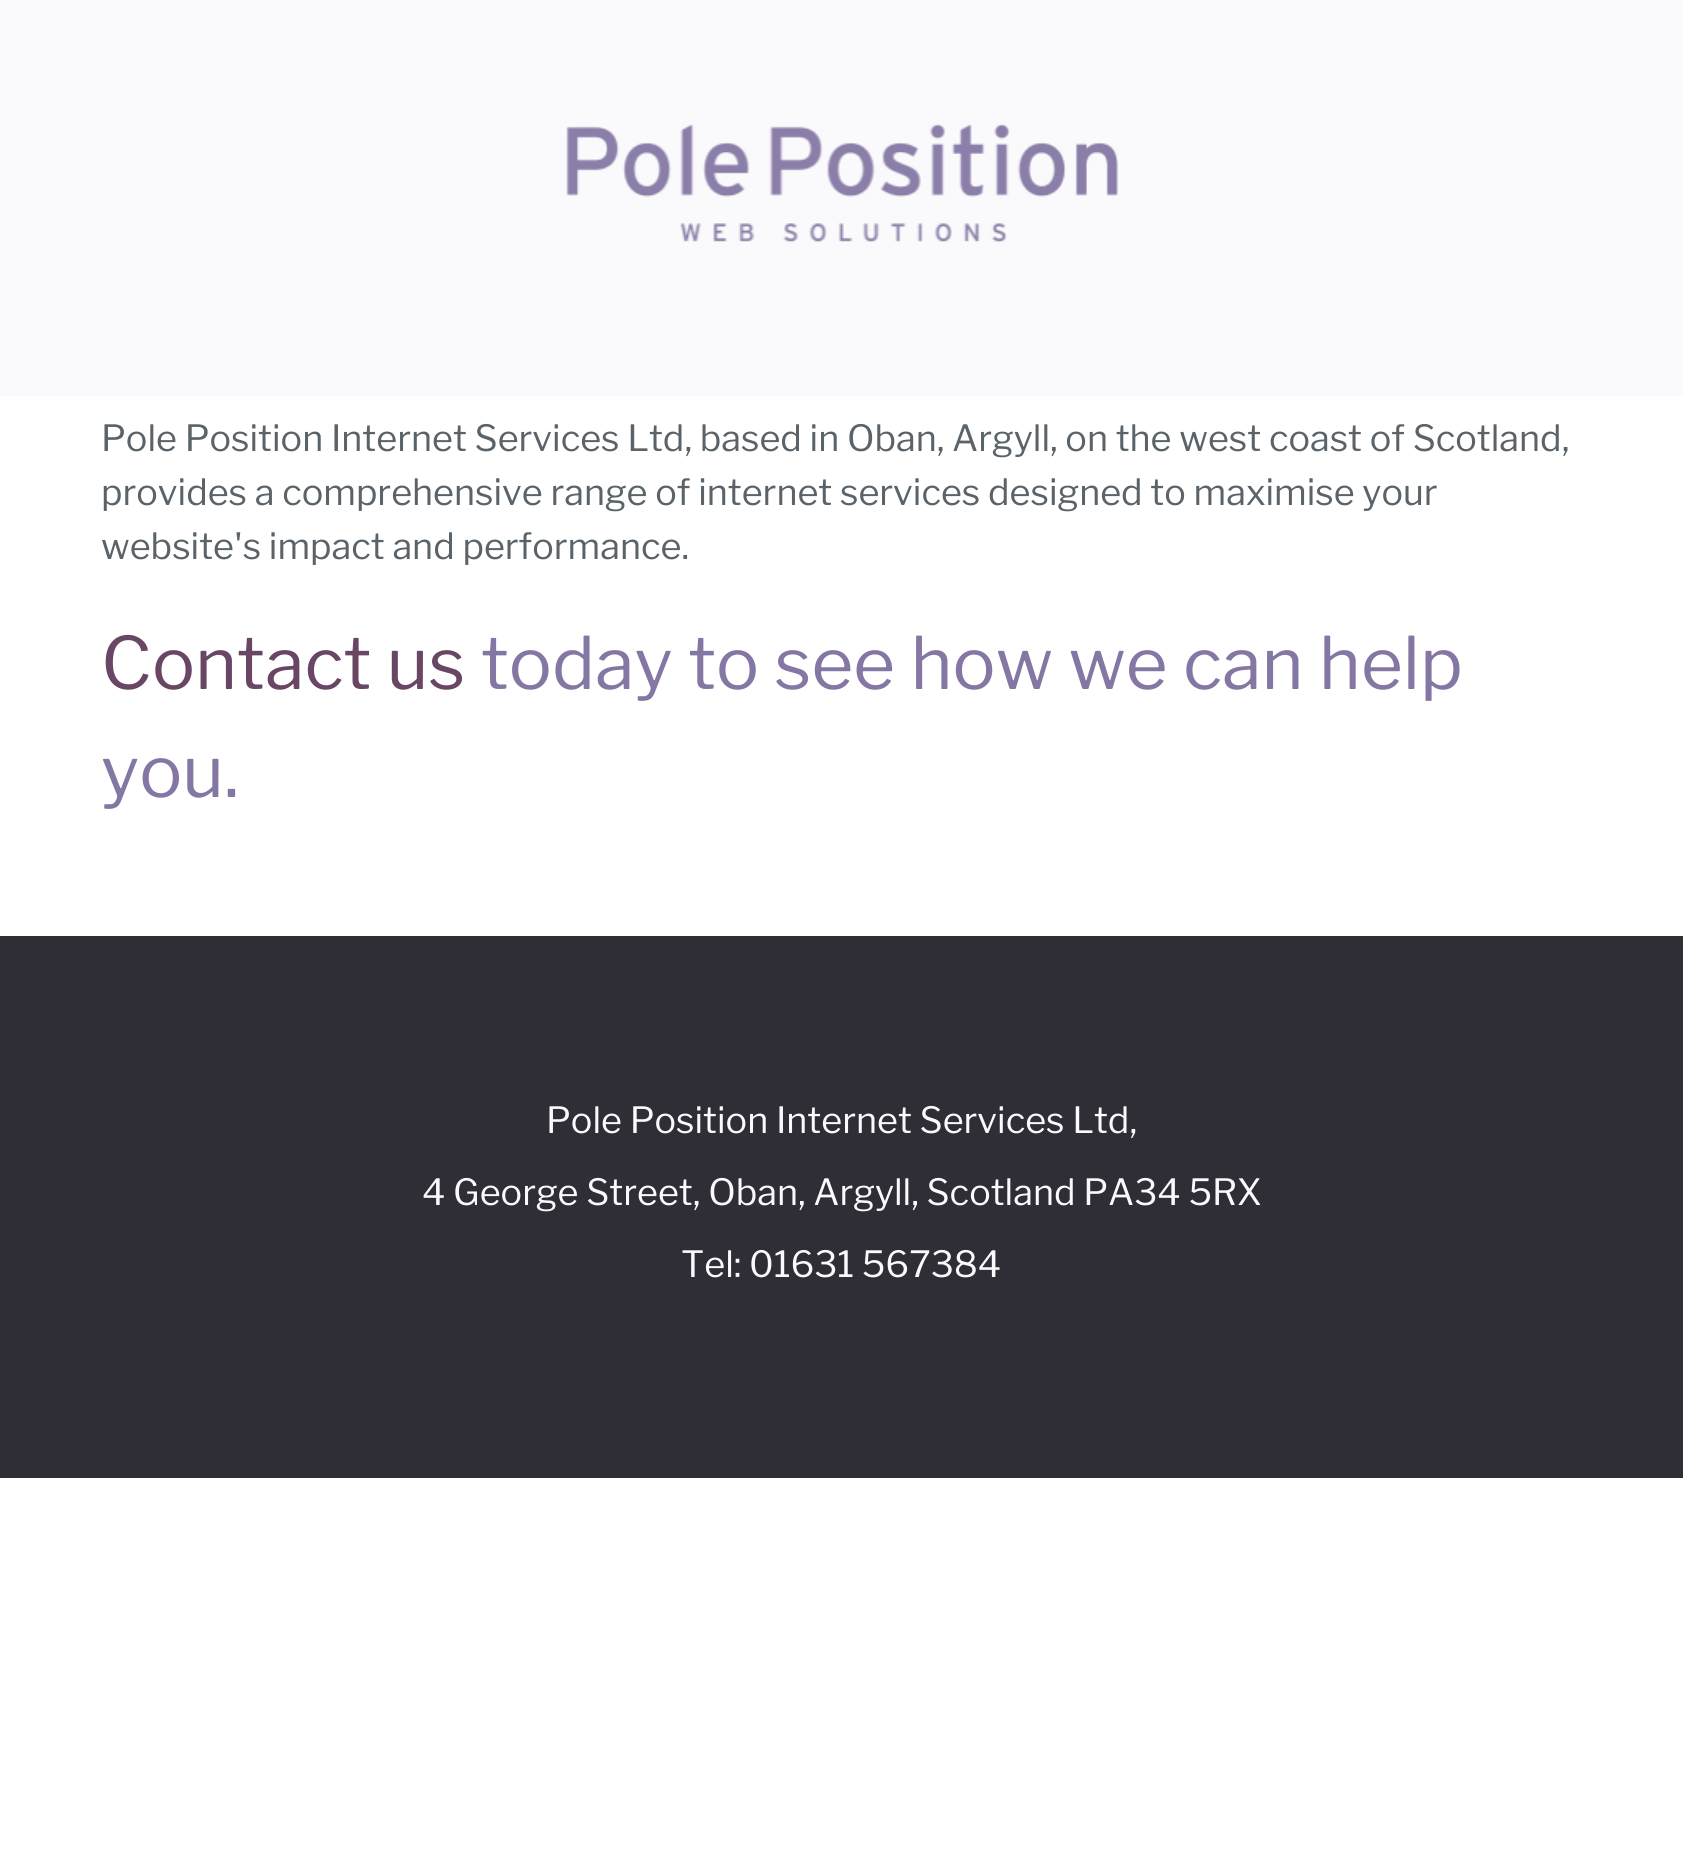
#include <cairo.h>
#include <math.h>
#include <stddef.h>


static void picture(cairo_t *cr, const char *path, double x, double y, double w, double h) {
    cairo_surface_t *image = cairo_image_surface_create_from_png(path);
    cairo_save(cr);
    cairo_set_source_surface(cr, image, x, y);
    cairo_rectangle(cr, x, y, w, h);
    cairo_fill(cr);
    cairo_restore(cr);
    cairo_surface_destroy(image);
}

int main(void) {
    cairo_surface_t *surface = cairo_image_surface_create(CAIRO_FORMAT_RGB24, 1683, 1873);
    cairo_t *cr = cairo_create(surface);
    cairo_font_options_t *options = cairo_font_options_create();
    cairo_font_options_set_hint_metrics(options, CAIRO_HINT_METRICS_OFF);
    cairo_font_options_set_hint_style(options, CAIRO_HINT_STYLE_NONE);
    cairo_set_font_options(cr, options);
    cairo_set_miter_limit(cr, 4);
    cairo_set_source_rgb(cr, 1, 1, 1);
    cairo_paint(cr);
    cairo_set_source_rgb(cr, 0.98, 0.98, 0.988);
    cairo_rectangle(cr, 0, 0, 1683, 396);
    cairo_fill(cr);
    picture(cr, "img1.png", 566, 124, 552, 119);
    cairo_select_font_face(cr, "Libre Franklin", CAIRO_FONT_SLANT_NORMAL, CAIRO_FONT_WEIGHT_NORMAL);
    cairo_set_font_size(cr, 36);
    cairo_set_source_rgb(cr, 0.349, 0.388, 0.412);
    cairo_move_to(cr, 101, 451);
    cairo_show_text(cr, "Pole Position Internet Services Ltd, based in Oban, Argyll, on the west coast of Scotland,");
    cairo_move_to(cr, 101, 505);
    cairo_show_text(cr, "provides a comprehensive range of internet services designed to maximise your");
    cairo_move_to(cr, 101, 559);
    cairo_show_text(cr, "website's impact and performance.");
    cairo_set_font_size(cr, 72);
    cairo_set_source_rgb(cr, 0.412, 0.275, 0.392);
    cairo_move_to(cr, 101, 689);
    cairo_show_text(cr, "Contact us");
    cairo_set_source_rgb(cr, 0.522, 0.467, 0.639);
    cairo_move_to(cr, 481, 689);
    cairo_show_text(cr, "today to see how we can help");
    cairo_move_to(cr, 101, 797);
    cairo_show_text(cr, "you.");
    cairo_set_source_rgb(cr, 0.184, 0.176, 0.208);
    cairo_rectangle(cr, 0, 936, 1683, 542);
    cairo_fill(cr);
    cairo_set_font_size(cr, 36);
    cairo_set_source_rgb(cr, 0.98, 0.976, 0.984);
    cairo_move_to(cr, 546, 1133);
    cairo_show_text(cr, "Pole Position Internet Services Ltd,");
    cairo_move_to(cr, 422, 1205);
    cairo_show_text(cr, "4 George Street, Oban, Argyll, Scotland PA34 5RX");
    cairo_move_to(cr, 681, 1277);
    cairo_show_text(cr, "Tel: 01631 567384");
    cairo_surface_write_to_png(surface, "page.png");
    cairo_font_options_destroy(options);
    cairo_destroy(cr);
    cairo_surface_destroy(surface);
    return 0;
}
